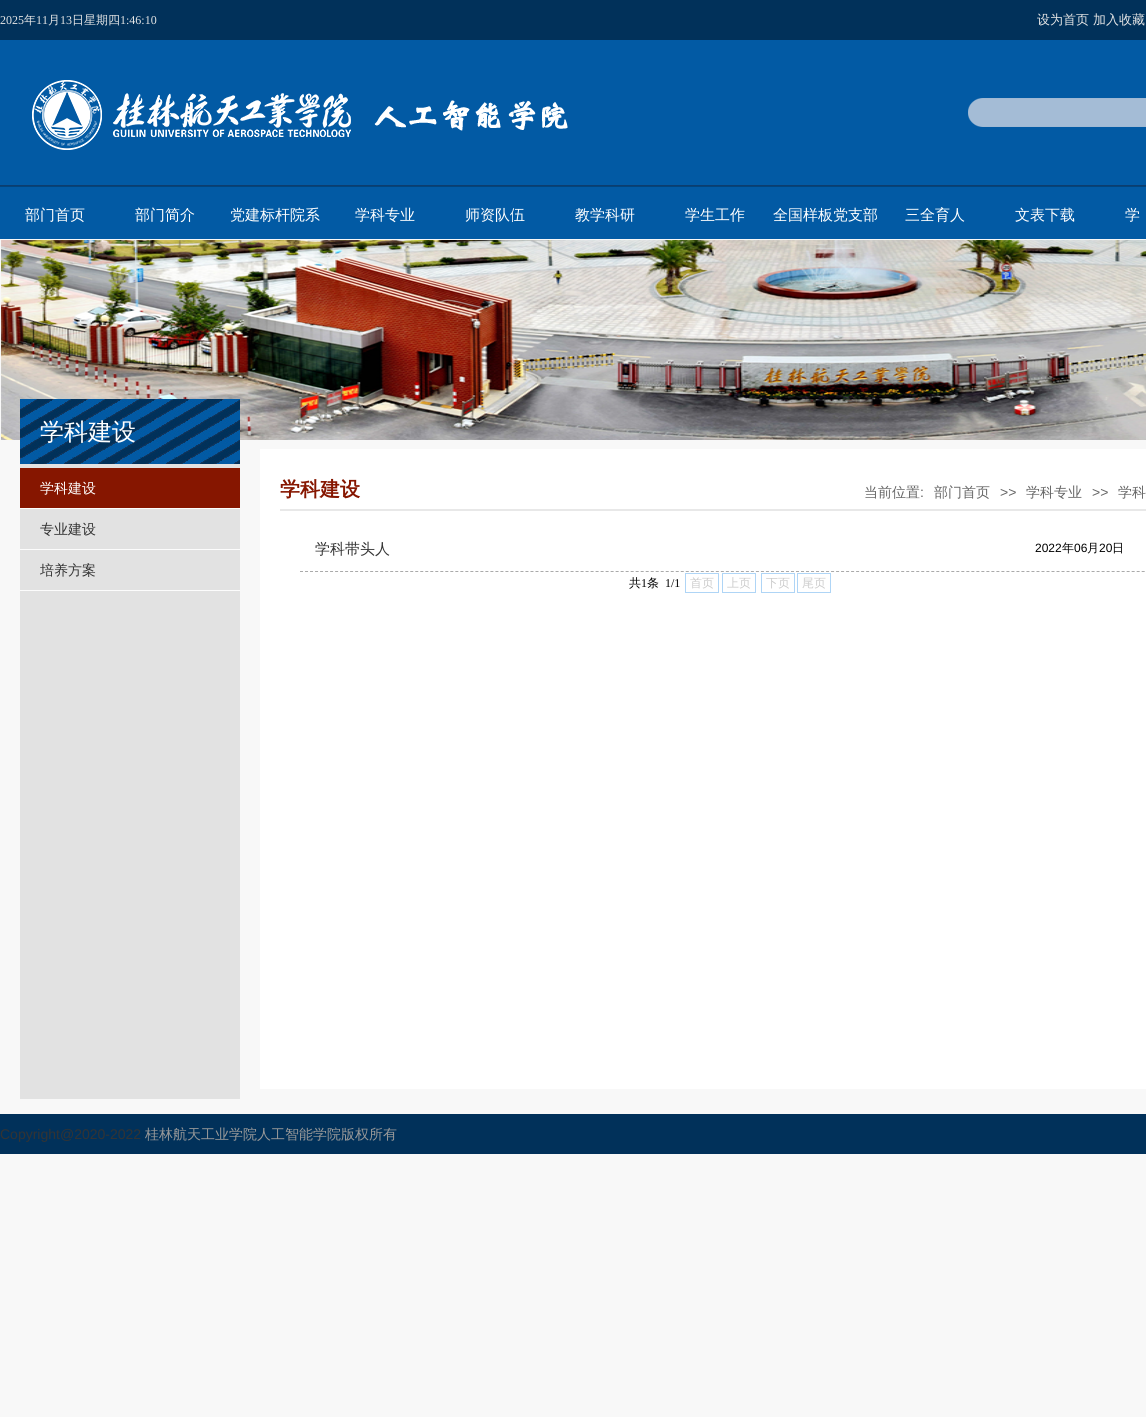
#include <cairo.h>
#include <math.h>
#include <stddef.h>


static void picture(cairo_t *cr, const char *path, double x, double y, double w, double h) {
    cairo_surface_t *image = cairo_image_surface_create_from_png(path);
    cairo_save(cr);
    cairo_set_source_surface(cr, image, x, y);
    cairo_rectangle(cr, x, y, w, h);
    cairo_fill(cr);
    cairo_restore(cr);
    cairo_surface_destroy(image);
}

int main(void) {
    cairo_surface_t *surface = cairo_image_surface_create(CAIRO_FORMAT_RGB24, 1146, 1417);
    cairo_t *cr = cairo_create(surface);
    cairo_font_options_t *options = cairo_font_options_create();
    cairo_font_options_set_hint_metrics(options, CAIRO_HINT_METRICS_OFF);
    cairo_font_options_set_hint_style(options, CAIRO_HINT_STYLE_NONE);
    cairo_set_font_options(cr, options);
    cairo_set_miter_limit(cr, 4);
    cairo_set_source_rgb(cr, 0.969, 0.969, 0.969);
    cairo_paint(cr);
    cairo_set_source_rgb(cr, 0.004, 0.192, 0.353);
    cairo_rectangle(cr, 0, 0, 1146, 40);
    cairo_fill(cr);
    cairo_select_font_face(cr, "Liberation Serif", CAIRO_FONT_SLANT_NORMAL, CAIRO_FONT_WEIGHT_NORMAL);
    cairo_set_font_size(cr, 12);
    cairo_set_source_rgb(cr, 0.898, 0.898, 0.898);
    cairo_move_to(cr, 0, 24);
    cairo_show_text(cr, "2025");
    cairo_select_font_face(cr, "WenQuanYi Zen Hei Medium", CAIRO_FONT_SLANT_NORMAL, CAIRO_FONT_WEIGHT_NORMAL);
    cairo_move_to(cr, 24, 24);
    cairo_show_text(cr, "年");
    cairo_select_font_face(cr, "Liberation Serif", CAIRO_FONT_SLANT_NORMAL, CAIRO_FONT_WEIGHT_NORMAL);
    cairo_move_to(cr, 36, 24);
    cairo_show_text(cr, "11");
    cairo_select_font_face(cr, "WenQuanYi Zen Hei Medium", CAIRO_FONT_SLANT_NORMAL, CAIRO_FONT_WEIGHT_NORMAL);
    cairo_move_to(cr, 48, 24);
    cairo_show_text(cr, "月");
    cairo_select_font_face(cr, "Liberation Serif", CAIRO_FONT_SLANT_NORMAL, CAIRO_FONT_WEIGHT_NORMAL);
    cairo_move_to(cr, 60, 24);
    cairo_show_text(cr, "13");
    cairo_select_font_face(cr, "WenQuanYi Zen Hei Medium", CAIRO_FONT_SLANT_NORMAL, CAIRO_FONT_WEIGHT_NORMAL);
    cairo_move_to(cr, 72, 24);
    cairo_show_text(cr, "日星期四");
    cairo_select_font_face(cr, "Liberation Serif", CAIRO_FONT_SLANT_NORMAL, CAIRO_FONT_WEIGHT_NORMAL);
    cairo_move_to(cr, 120, 24);
    cairo_show_text(cr, "1:46:10");
    cairo_select_font_face(cr, "WenQuanYi Zen Hei Medium", CAIRO_FONT_SLANT_NORMAL, CAIRO_FONT_WEIGHT_NORMAL);
    cairo_set_font_size(cr, 13);
    cairo_move_to(cr, 1037, 24);
    cairo_show_text(cr, "设为首页 加入收藏");
    picture(cr, "img1.png", 0, 40, 1146, 199);
    picture(cr, "img2.png", 32, 80, 536, 70);
    picture(cr, "img3.png", 968, 98, 178, 29);
    cairo_set_font_size(cr, 15);
    cairo_set_source_rgb(cr, 1, 1, 1);
    cairo_move_to(cr, 25, 220);
    cairo_show_text(cr, "部门首页");
    cairo_move_to(cr, 135, 220);
    cairo_show_text(cr, "部门简介");
    cairo_move_to(cr, 230, 220);
    cairo_show_text(cr, "党建标杆院系");
    cairo_move_to(cr, 355, 220);
    cairo_show_text(cr, "学科专业");
    cairo_move_to(cr, 465, 220);
    cairo_show_text(cr, "师资队伍");
    cairo_move_to(cr, 575, 220);
    cairo_show_text(cr, "教学科研");
    cairo_move_to(cr, 685, 220);
    cairo_show_text(cr, "学生工作");
    cairo_move_to(cr, 773, 220);
    cairo_show_text(cr, "全国样板党支部");
    cairo_move_to(cr, 905, 220);
    cairo_show_text(cr, "三全育人");
    cairo_move_to(cr, 1015, 220);
    cairo_show_text(cr, "文表下载");
    cairo_move_to(cr, 1125, 220);
    cairo_show_text(cr, "学");
    picture(cr, "img4.png", 1, 240, 1145, 200);
    cairo_set_source_rgb(cr, 0.886, 0.886, 0.886);
    cairo_rectangle(cr, 20, 464, 220, 635);
    cairo_fill(cr);
    picture(cr, "img5.png", 20, 399, 220, 65);
    cairo_set_font_size(cr, 24);
    cairo_set_source_rgb(cr, 1, 1, 1);
    cairo_move_to(cr, 40, 440);
    cairo_show_text(cr, "学科建设");
    cairo_set_source_rgb(cr, 0.525, 0.086, 0);
    cairo_rectangle(cr, 20, 468, 220, 40);
    cairo_fill(cr);
    cairo_set_source_rgb(cr, 0.988, 0.988, 0.988);
    cairo_rectangle(cr, 20, 508, 220, 1);
    cairo_fill(cr);
    cairo_set_font_size(cr, 14);
    cairo_set_source_rgb(cr, 1, 1, 1);
    cairo_move_to(cr, 40, 493);
    cairo_show_text(cr, "学科建设");
    cairo_set_source_rgb(cr, 0.988, 0.988, 0.988);
    cairo_rectangle(cr, 20, 549, 220, 1);
    cairo_fill(cr);
    cairo_set_source_rgb(cr, 0.2, 0.2, 0.2);
    cairo_move_to(cr, 40, 534);
    cairo_show_text(cr, "专业建设");
    cairo_set_source_rgb(cr, 0.988, 0.988, 0.988);
    cairo_rectangle(cr, 20, 590, 220, 1);
    cairo_fill(cr);
    cairo_set_source_rgb(cr, 0.2, 0.2, 0.2);
    cairo_move_to(cr, 40, 575);
    cairo_show_text(cr, "培养方案");
    cairo_set_source_rgb(cr, 1, 1, 1);
    cairo_rectangle(cr, 260, 449, 886, 640);
    cairo_fill(cr);
    cairo_select_font_face(cr, "WenQuanYi Zen Hei", CAIRO_FONT_SLANT_NORMAL, CAIRO_FONT_WEIGHT_BOLD);
    cairo_set_font_size(cr, 20);
    cairo_set_source_rgb(cr, 0.525, 0.086, 0);
    cairo_move_to(cr, 280, 496);
    cairo_show_text(cr, "学科建设");
    cairo_select_font_face(cr, "WenQuanYi Zen Hei Medium", CAIRO_FONT_SLANT_NORMAL, CAIRO_FONT_WEIGHT_NORMAL);
    cairo_set_font_size(cr, 14);
    cairo_set_source_rgb(cr, 0.4, 0.4, 0.4);
    cairo_move_to(cr, 864, 497);
    cairo_show_text(cr, "当前位置");
    cairo_select_font_face(cr, "Liberation Sans", CAIRO_FONT_SLANT_NORMAL, CAIRO_FONT_WEIGHT_NORMAL);
    cairo_move_to(cr, 920, 497);
    cairo_show_text(cr, ":");
    cairo_select_font_face(cr, "WenQuanYi Zen Hei Medium", CAIRO_FONT_SLANT_NORMAL, CAIRO_FONT_WEIGHT_NORMAL);
    cairo_move_to(cr, 934, 497);
    cairo_show_text(cr, "部门首页");
    cairo_select_font_face(cr, "Liberation Sans", CAIRO_FONT_SLANT_NORMAL, CAIRO_FONT_WEIGHT_NORMAL);
    cairo_move_to(cr, 1000, 497);
    cairo_show_text(cr, ">>");
    cairo_select_font_face(cr, "WenQuanYi Zen Hei Medium", CAIRO_FONT_SLANT_NORMAL, CAIRO_FONT_WEIGHT_NORMAL);
    cairo_move_to(cr, 1026, 497);
    cairo_show_text(cr, "学科专业");
    cairo_select_font_face(cr, "Liberation Sans", CAIRO_FONT_SLANT_NORMAL, CAIRO_FONT_WEIGHT_NORMAL);
    cairo_move_to(cr, 1092, 497);
    cairo_show_text(cr, ">>");
    cairo_select_font_face(cr, "WenQuanYi Zen Hei Medium", CAIRO_FONT_SLANT_NORMAL, CAIRO_FONT_WEIGHT_NORMAL);
    cairo_move_to(cr, 1118, 497);
    cairo_show_text(cr, "学科");
    cairo_set_source_rgb(cr, 0.91, 0.91, 0.91);
    cairo_rectangle(cr, 280, 509, 866, 2);
    cairo_fill(cr);
    cairo_new_path(cr);
    cairo_move_to(cr, 300, 571.5);
    cairo_line_to(cr, 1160, 571.5);
    cairo_set_source_rgb(cr, 0.667, 0.667, 0.667);
    cairo_set_line_width(cr, 1);
    cairo_set_dash(cr, (double[]){3, 2.01}, 2, 0);
    cairo_stroke(cr);
    cairo_set_font_size(cr, 15);
    cairo_set_source_rgb(cr, 0.2, 0.2, 0.2);
    cairo_move_to(cr, 315, 554);
    cairo_show_text(cr, "学科带头人");
    cairo_select_font_face(cr, "Liberation Sans", CAIRO_FONT_SLANT_NORMAL, CAIRO_FONT_WEIGHT_NORMAL);
    cairo_set_font_size(cr, 12);
    cairo_set_source_rgb(cr, 0, 0, 0);
    cairo_move_to(cr, 1035, 552);
    cairo_show_text(cr, "2022");
    cairo_select_font_face(cr, "WenQuanYi Zen Hei Medium", CAIRO_FONT_SLANT_NORMAL, CAIRO_FONT_WEIGHT_NORMAL);
    cairo_move_to(cr, 1062, 552);
    cairo_show_text(cr, "年");
    cairo_select_font_face(cr, "Liberation Sans", CAIRO_FONT_SLANT_NORMAL, CAIRO_FONT_WEIGHT_NORMAL);
    cairo_move_to(cr, 1074, 552);
    cairo_show_text(cr, "06");
    cairo_select_font_face(cr, "WenQuanYi Zen Hei Medium", CAIRO_FONT_SLANT_NORMAL, CAIRO_FONT_WEIGHT_NORMAL);
    cairo_move_to(cr, 1087, 552);
    cairo_show_text(cr, "月");
    cairo_select_font_face(cr, "Liberation Sans", CAIRO_FONT_SLANT_NORMAL, CAIRO_FONT_WEIGHT_NORMAL);
    cairo_move_to(cr, 1099, 552);
    cairo_show_text(cr, "20");
    cairo_select_font_face(cr, "WenQuanYi Zen Hei Medium", CAIRO_FONT_SLANT_NORMAL, CAIRO_FONT_WEIGHT_NORMAL);
    cairo_move_to(cr, 1112, 552);
    cairo_show_text(cr, "日");
    cairo_move_to(cr, 629, 587);
    cairo_show_text(cr, "共");
    cairo_select_font_face(cr, "Liberation Serif", CAIRO_FONT_SLANT_NORMAL, CAIRO_FONT_WEIGHT_NORMAL);
    cairo_move_to(cr, 641, 587);
    cairo_show_text(cr, "1");
    cairo_select_font_face(cr, "WenQuanYi Zen Hei Medium", CAIRO_FONT_SLANT_NORMAL, CAIRO_FONT_WEIGHT_NORMAL);
    cairo_move_to(cr, 647, 587);
    cairo_show_text(cr, "条");
    cairo_select_font_face(cr, "Liberation Serif", CAIRO_FONT_SLANT_NORMAL, CAIRO_FONT_WEIGHT_NORMAL);
    cairo_move_to(cr, 665, 587);
    cairo_show_text(cr, "1/1");
    cairo_rectangle(cr, 685.5, 573.5, 33, 19);
    cairo_set_source_rgb(cr, 0.686, 0.835, 0.961);
    cairo_set_dash(cr, NULL, 0, 0);
    cairo_stroke(cr);
    cairo_select_font_face(cr, "WenQuanYi Zen Hei Medium", CAIRO_FONT_SLANT_NORMAL, CAIRO_FONT_WEIGHT_NORMAL);
    cairo_set_source_rgb(cr, 0.8, 0.8, 0.8);
    cairo_move_to(cr, 690, 587);
    cairo_show_text(cr, "首页");
    cairo_rectangle(cr, 722.5, 573.5, 33, 19);
    cairo_set_source_rgb(cr, 0.686, 0.835, 0.961);
    cairo_stroke(cr);
    cairo_set_source_rgb(cr, 0.8, 0.8, 0.8);
    cairo_move_to(cr, 727, 587);
    cairo_show_text(cr, "上页");
    cairo_rectangle(cr, 761.5, 573.5, 33, 19);
    cairo_set_source_rgb(cr, 0.686, 0.835, 0.961);
    cairo_stroke(cr);
    cairo_set_source_rgb(cr, 0.8, 0.8, 0.8);
    cairo_move_to(cr, 766, 587);
    cairo_show_text(cr, "下页");
    cairo_rectangle(cr, 797.5, 573.5, 33, 19);
    cairo_set_source_rgb(cr, 0.686, 0.835, 0.961);
    cairo_stroke(cr);
    cairo_set_source_rgb(cr, 0.8, 0.8, 0.8);
    cairo_move_to(cr, 802, 587);
    cairo_show_text(cr, "尾页");
    cairo_set_source_rgb(cr, 0.004, 0.192, 0.353);
    cairo_rectangle(cr, 0, 1114, 1146, 40);
    cairo_fill(cr);
    cairo_select_font_face(cr, "Liberation Sans", CAIRO_FONT_SLANT_NORMAL, CAIRO_FONT_WEIGHT_NORMAL);
    cairo_set_font_size(cr, 14);
    cairo_set_source_rgb(cr, 0.2, 0.2, 0.2);
    cairo_move_to(cr, 0, 1139);
    cairo_show_text(cr, "Copyright@2020-2022");
    cairo_select_font_face(cr, "WenQuanYi Zen Hei Medium", CAIRO_FONT_SLANT_NORMAL, CAIRO_FONT_WEIGHT_NORMAL);
    cairo_set_source_rgb(cr, 0.6, 0.6, 0.6);
    cairo_move_to(cr, 145, 1139);
    cairo_show_text(cr, "桂林航天工业学院人工智能学院版权所有");
    cairo_surface_write_to_png(surface, "page.png");
    cairo_font_options_destroy(options);
    cairo_destroy(cr);
    cairo_surface_destroy(surface);
    return 0;
}
